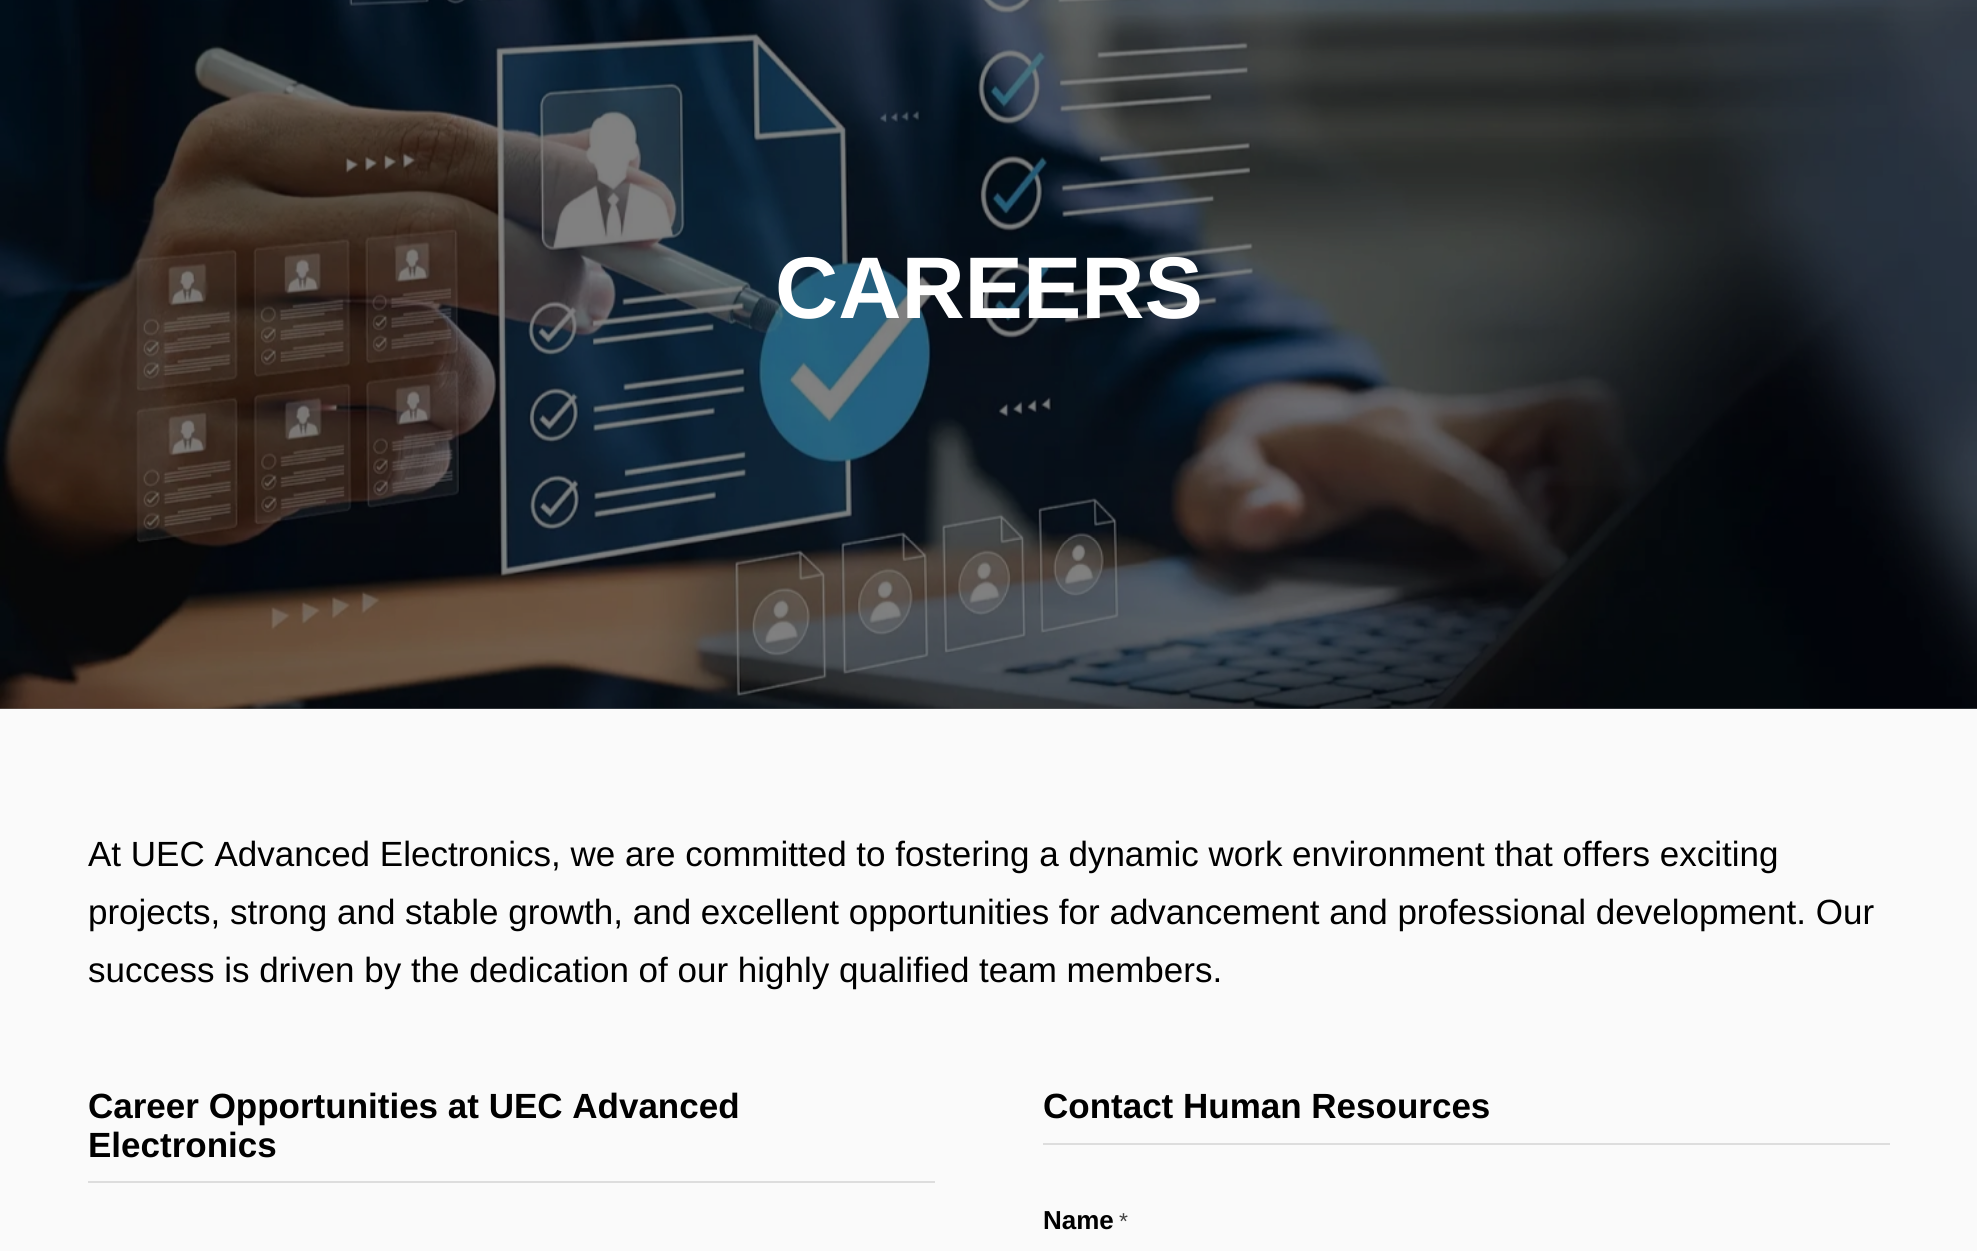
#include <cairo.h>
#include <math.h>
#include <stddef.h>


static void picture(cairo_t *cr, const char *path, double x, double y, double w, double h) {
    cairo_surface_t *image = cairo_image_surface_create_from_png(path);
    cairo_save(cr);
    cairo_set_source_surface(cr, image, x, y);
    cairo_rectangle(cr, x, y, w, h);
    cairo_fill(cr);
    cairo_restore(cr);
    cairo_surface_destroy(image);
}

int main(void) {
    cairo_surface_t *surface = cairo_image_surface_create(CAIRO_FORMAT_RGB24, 1977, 1251);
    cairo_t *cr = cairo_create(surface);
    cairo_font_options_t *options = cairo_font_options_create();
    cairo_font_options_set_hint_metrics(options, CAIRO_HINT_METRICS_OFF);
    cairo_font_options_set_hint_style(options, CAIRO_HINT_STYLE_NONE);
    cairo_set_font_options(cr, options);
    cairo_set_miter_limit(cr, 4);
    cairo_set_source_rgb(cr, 0.475, 0.475, 0.475);
    cairo_paint(cr);
    picture(cr, "img1.png", 0, 0, 1977, 709);
    cairo_select_font_face(cr, "Liberation Sans", CAIRO_FONT_SLANT_NORMAL, CAIRO_FONT_WEIGHT_BOLD);
    cairo_set_font_size(cr, 87.5);
    cairo_set_source_rgb(cr, 1, 1, 1);
    cairo_move_to(cr, 775, 318);
    cairo_show_text(cr, "CAREERS");
    cairo_set_source_rgb(cr, 0.98, 0.98, 0.98);
    cairo_rectangle(cr, 0, 709, 1977, 542);
    cairo_fill(cr);
    cairo_select_font_face(cr, "Liberation Sans", CAIRO_FONT_SLANT_NORMAL, CAIRO_FONT_WEIGHT_NORMAL);
    cairo_set_font_size(cr, 35);
    cairo_set_source_rgb(cr, 0, 0, 0);
    cairo_move_to(cr, 88, 866);
    cairo_show_text(cr, "At UEC Advanced Electronics, we are committed to fostering a dynamic work environment that offers exciting");
    cairo_move_to(cr, 88, 924);
    cairo_show_text(cr, "projects, strong and stable growth, and excellent opportunities for advancement and professional development. Our");
    cairo_move_to(cr, 88, 982);
    cairo_show_text(cr, "success is driven by the dedication of our highly qualified team members.");
    cairo_select_font_face(cr, "Liberation Sans", CAIRO_FONT_SLANT_NORMAL, CAIRO_FONT_WEIGHT_BOLD);
    cairo_move_to(cr, 88, 1118);
    cairo_show_text(cr, "Career Opportunities at UEC Advanced");
    cairo_move_to(cr, 88, 1157);
    cairo_show_text(cr, "Electronics");
    cairo_set_source_rgb(cr, 0.867, 0.867, 0.867);
    cairo_rectangle(cr, 88, 1181, 847, 2);
    cairo_fill(cr);
    cairo_set_source_rgb(cr, 0, 0, 0);
    cairo_move_to(cr, 1043, 1118);
    cairo_show_text(cr, "Contact Human Resources");
    cairo_set_source_rgb(cr, 0.867, 0.867, 0.867);
    cairo_rectangle(cr, 1043, 1143, 847, 2);
    cairo_fill(cr);
    cairo_set_font_size(cr, 26);
    cairo_set_source_rgb(cr, 0, 0, 0);
    cairo_move_to(cr, 1043, 1229);
    cairo_show_text(cr, "Name");
    cairo_select_font_face(cr, "Liberation Sans", CAIRO_FONT_SLANT_NORMAL, CAIRO_FONT_WEIGHT_NORMAL);
    cairo_set_font_size(cr, 23);
    cairo_set_source_rgb(cr, 0.267, 0.267, 0.267);
    cairo_move_to(cr, 1119, 1229);
    cairo_show_text(cr, "*");
    cairo_surface_write_to_png(surface, "page.png");
    cairo_font_options_destroy(options);
    cairo_destroy(cr);
    cairo_surface_destroy(surface);
    return 0;
}
